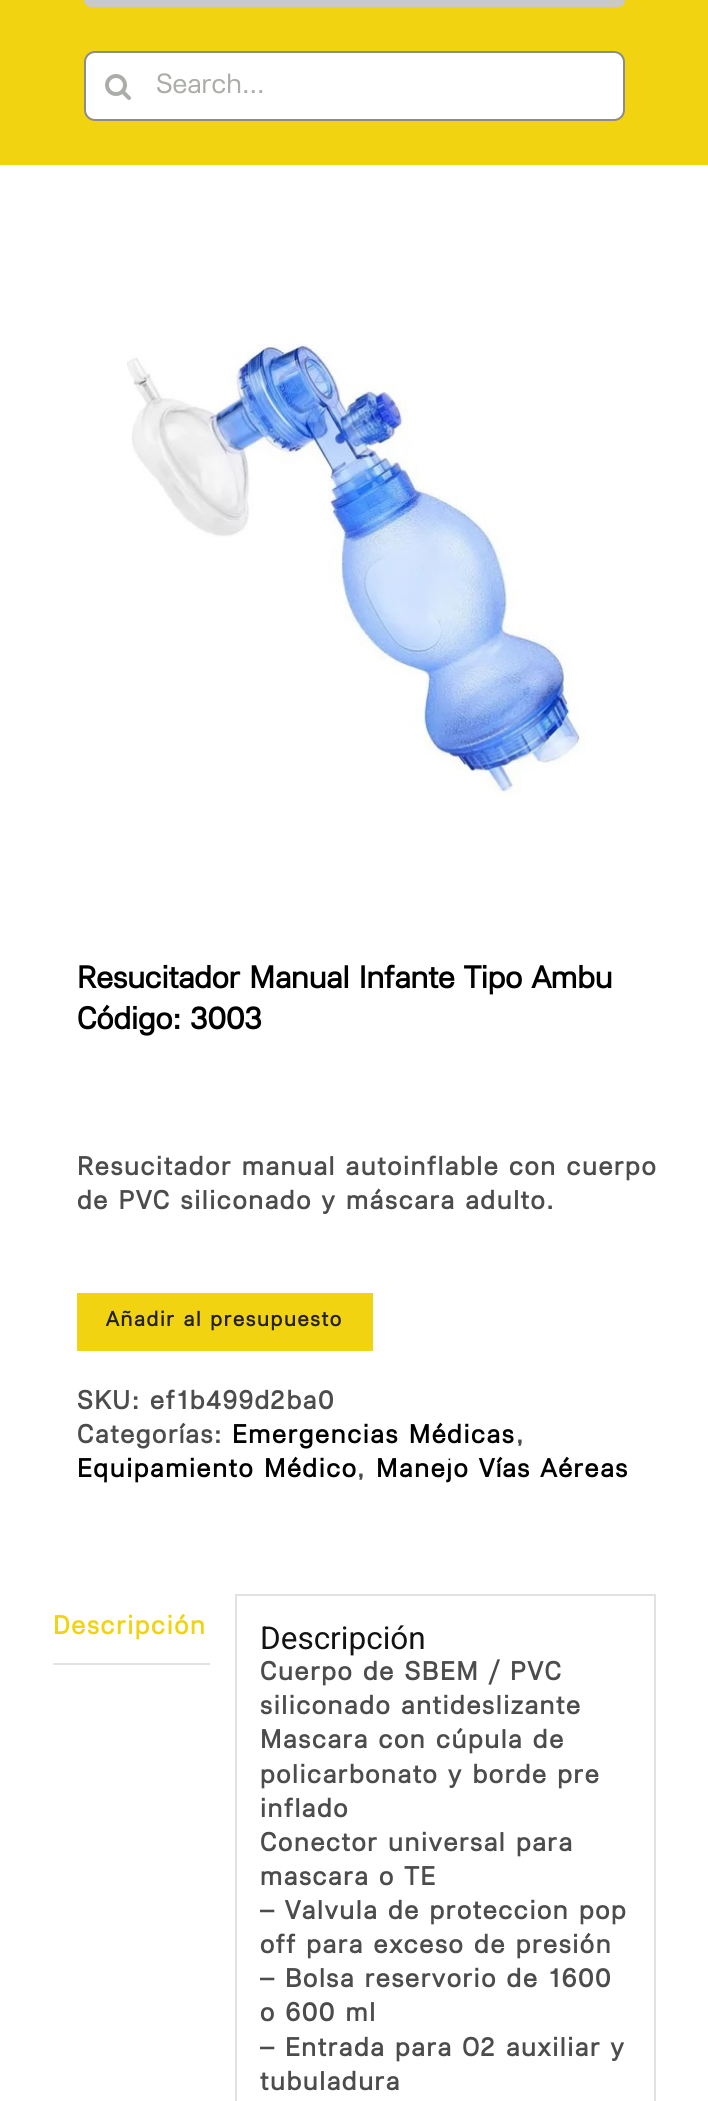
#include <cairo.h>
#include <math.h>
#include <stddef.h>


static void spaced_text(cairo_t *cr, double x, double y, const char *s, double letter, double word) {
    cairo_move_to(cr, x, y);
    while (*s) {
        char ch[5] = {0};
        int n = 0;
        do ch[n++] = *s++; while ((*s & 0xC0) == 0x80);
        cairo_show_text(cr, ch);
        cairo_rel_move_to(cr, letter + word * (*ch == ' '), 0);
    }
}

static void round_rect(cairo_t *cr, double x, double y, double w, double h, double r) {
    cairo_new_sub_path(cr);
    cairo_arc(cr, x + w - r, y + h - r, r, 0, M_PI / 2);
    cairo_arc(cr, x + r, y + h - r, r, M_PI / 2, M_PI);
    cairo_arc(cr, x + r, y + r, r, M_PI, 1.5 * M_PI);
    cairo_arc(cr, x + w - r, y + r, r, 1.5 * M_PI, 2 * M_PI);
    cairo_close_path(cr);
}

static void picture(cairo_t *cr, const char *path, double x, double y, double w, double h) {
    cairo_surface_t *image = cairo_image_surface_create_from_png(path);
    cairo_save(cr);
    cairo_set_source_surface(cr, image, x, y);
    cairo_rectangle(cr, x, y, w, h);
    cairo_fill(cr);
    cairo_restore(cr);
    cairo_surface_destroy(image);
}

int main(void) {
    cairo_surface_t *surface = cairo_image_surface_create(CAIRO_FORMAT_RGB24, 708, 2101);
    cairo_t *cr = cairo_create(surface);
    cairo_font_options_t *options = cairo_font_options_create();
    cairo_font_options_set_hint_metrics(options, CAIRO_HINT_METRICS_OFF);
    cairo_font_options_set_hint_style(options, CAIRO_HINT_STYLE_NONE);
    cairo_set_font_options(cr, options);
    cairo_set_miter_limit(cr, 4);
    cairo_set_source_rgb(cr, 1, 1, 1);
    cairo_paint(cr);
    cairo_set_source_rgb(cr, 0.945, 0.827, 0.067);
    cairo_rectangle(cr, 0, 0, 708, 165);
    cairo_fill(cr);
    cairo_set_source_rgb(cr, 0.788, 0.788, 0.788);
    round_rect(cr, 84, -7, 541, 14, 7);
    cairo_fill(cr);
    cairo_set_source_rgb(cr, 1, 1, 1);
    round_rect(cr, 85, 52, 539, 68, 10);
    cairo_fill_preserve(cr);
    cairo_set_source_rgb(cr, 0.549, 0.549, 0.549);
    cairo_stroke(cr);
    picture(cr, "img1.png", 105, 74, 26, 26);
    cairo_select_font_face(cr, "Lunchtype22", CAIRO_FONT_SLANT_NORMAL, CAIRO_FONT_WEIGHT_NORMAL);
    cairo_set_font_size(cr, 28);
    cairo_set_source_rgb(cr, 0.667, 0.678, 0.659);
    cairo_move_to(cr, 156, 93);
    cairo_show_text(cr, "Search...");
    picture(cr, "img2.png", 127, 338, 459, 459);
    cairo_select_font_face(cr, "Lunchtype22", CAIRO_FONT_SLANT_NORMAL, CAIRO_FONT_WEIGHT_BOLD);
    cairo_set_font_size(cr, 31.5);
    cairo_set_source_rgb(cr, 0, 0, 0);
    cairo_move_to(cr, 77, 988);
    cairo_show_text(cr, "Resucitador Manual Infante Tipo Ambu");
    cairo_move_to(cr, 77, 1029);
    cairo_show_text(cr, "Código: 3003");
    cairo_set_font_size(cr, 26.25);
    cairo_set_source_rgb(cr, 0.298, 0.298, 0.298);
    spaced_text(cr, 77, 1175, "Resucitador manual autoinflable con cuerpo", 1.75, 0);
    spaced_text(cr, 77, 1209, "de PVC siliconado y máscara adulto.", 1.75, 0);
    cairo_set_source_rgb(cr, 0.945, 0.827, 0.067);
    cairo_rectangle(cr, 77, 1293, 296, 58);
    cairo_fill(cr);
    cairo_set_font_size(cr, 21);
    cairo_set_source_rgb(cr, 0.145, 0.129, 0.129);
    spaced_text(cr, 106, 1326, "Añadir al presupuesto", 1.75, 0);
    cairo_set_font_size(cr, 26.25);
    cairo_set_source_rgb(cr, 0.298, 0.298, 0.298);
    spaced_text(cr, 77, 1409, "SKU: ef1b499d2ba0", 1.75, 0);
    spaced_text(cr, 77, 1443, "Categorías:", 1.75, 0);
    cairo_set_source_rgb(cr, 0, 0, 0);
    spaced_text(cr, 232, 1443, "Emergencias Médicas", 1.75, 0);
    cairo_set_source_rgb(cr, 0.298, 0.298, 0.298);
    spaced_text(cr, 516, 1443, ",", 1.75, 0);
    cairo_set_source_rgb(cr, 0, 0, 0);
    spaced_text(cr, 77, 1477, "Equipamiento Médico", 1.75, 0);
    cairo_set_source_rgb(cr, 0.298, 0.298, 0.298);
    spaced_text(cr, 357, 1477, ",", 1.75, 0);
    cairo_set_source_rgb(cr, 0, 0, 0);
    spaced_text(cr, 376, 1477, "Manejo Vías Aéreas", 1.75, 0);
    cairo_set_source_rgb(cr, 0.886, 0.886, 0.886);
    cairo_rectangle(cr, 53, 1663, 157, 2);
    cairo_fill(cr);
    cairo_set_source_rgb(cr, 0.945, 0.827, 0.067);
    spaced_text(cr, 53, 1634, "Descripción", 1.75, 0);
    cairo_rectangle(cr, 236, 1595, 419, 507);
    cairo_set_source_rgb(cr, 0.886, 0.886, 0.886);
    cairo_stroke(cr);
    cairo_select_font_face(cr, "Roboto", CAIRO_FONT_SLANT_NORMAL, CAIRO_FONT_WEIGHT_NORMAL);
    cairo_set_font_size(cr, 31.5);
    cairo_set_source_rgb(cr, 0.078, 0.078, 0.078);
    cairo_move_to(cr, 260, 1649);
    cairo_show_text(cr, "Descripción");
    cairo_select_font_face(cr, "Lunchtype22", CAIRO_FONT_SLANT_NORMAL, CAIRO_FONT_WEIGHT_BOLD);
    cairo_set_font_size(cr, 26.25);
    cairo_set_source_rgb(cr, 0.298, 0.298, 0.298);
    spaced_text(cr, 260, 1680, "Cuerpo de SBEM / PVC", 1.75, 0);
    spaced_text(cr, 260, 1714, "siliconado antideslizante", 1.75, 0);
    spaced_text(cr, 260, 1748, "Mascara con cúpula de", 1.75, 0);
    spaced_text(cr, 260, 1783, "policarbonato y borde pre", 1.75, 0);
    spaced_text(cr, 260, 1817, "inflado", 1.75, 0);
    spaced_text(cr, 260, 1851, "Conector universal para", 1.75, 0);
    spaced_text(cr, 260, 1885, "mascara o TE", 1.75, 0);
    spaced_text(cr, 260, 1919, "– Valvula de proteccion pop", 1.75, 0);
    spaced_text(cr, 260, 1953, "off para exceso de presión", 1.75, 0);
    spaced_text(cr, 260, 1987, "– Bolsa reservorio de 1600", 1.75, 0);
    spaced_text(cr, 260, 2021, "o 600 ml", 1.75, 0);
    spaced_text(cr, 260, 2056, "– Entrada para O2 auxiliar y", 1.75, 0);
    spaced_text(cr, 260, 2090, "tubuladura", 1.75, 0);
    cairo_surface_write_to_png(surface, "page.png");
    cairo_font_options_destroy(options);
    cairo_destroy(cr);
    cairo_surface_destroy(surface);
    return 0;
}
